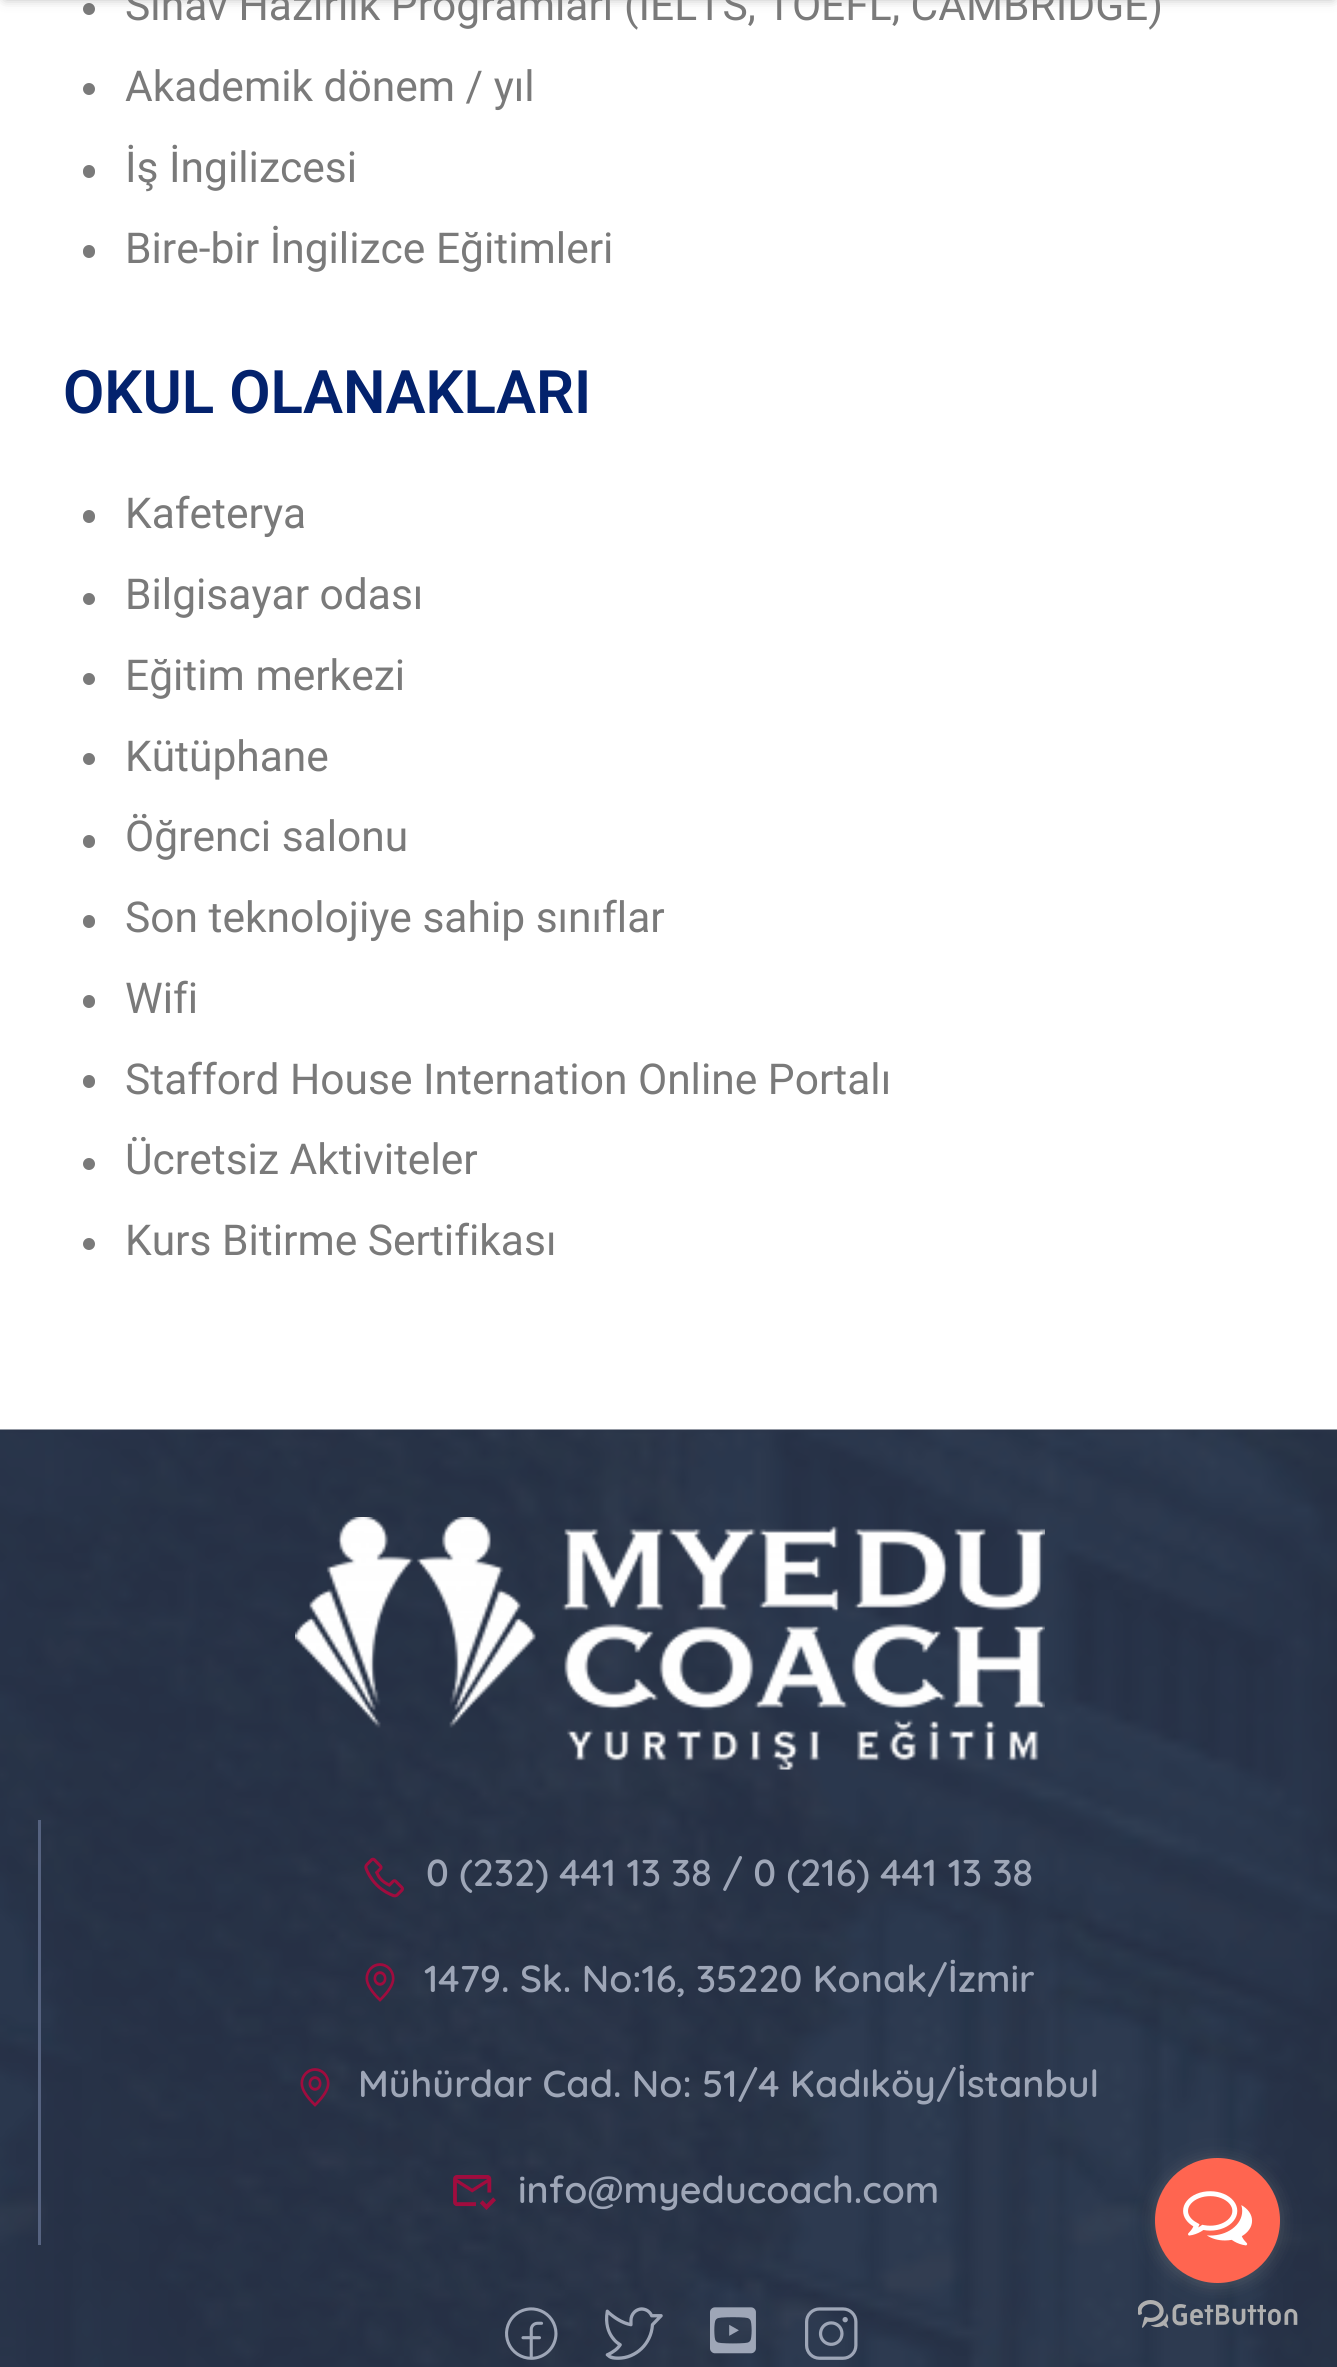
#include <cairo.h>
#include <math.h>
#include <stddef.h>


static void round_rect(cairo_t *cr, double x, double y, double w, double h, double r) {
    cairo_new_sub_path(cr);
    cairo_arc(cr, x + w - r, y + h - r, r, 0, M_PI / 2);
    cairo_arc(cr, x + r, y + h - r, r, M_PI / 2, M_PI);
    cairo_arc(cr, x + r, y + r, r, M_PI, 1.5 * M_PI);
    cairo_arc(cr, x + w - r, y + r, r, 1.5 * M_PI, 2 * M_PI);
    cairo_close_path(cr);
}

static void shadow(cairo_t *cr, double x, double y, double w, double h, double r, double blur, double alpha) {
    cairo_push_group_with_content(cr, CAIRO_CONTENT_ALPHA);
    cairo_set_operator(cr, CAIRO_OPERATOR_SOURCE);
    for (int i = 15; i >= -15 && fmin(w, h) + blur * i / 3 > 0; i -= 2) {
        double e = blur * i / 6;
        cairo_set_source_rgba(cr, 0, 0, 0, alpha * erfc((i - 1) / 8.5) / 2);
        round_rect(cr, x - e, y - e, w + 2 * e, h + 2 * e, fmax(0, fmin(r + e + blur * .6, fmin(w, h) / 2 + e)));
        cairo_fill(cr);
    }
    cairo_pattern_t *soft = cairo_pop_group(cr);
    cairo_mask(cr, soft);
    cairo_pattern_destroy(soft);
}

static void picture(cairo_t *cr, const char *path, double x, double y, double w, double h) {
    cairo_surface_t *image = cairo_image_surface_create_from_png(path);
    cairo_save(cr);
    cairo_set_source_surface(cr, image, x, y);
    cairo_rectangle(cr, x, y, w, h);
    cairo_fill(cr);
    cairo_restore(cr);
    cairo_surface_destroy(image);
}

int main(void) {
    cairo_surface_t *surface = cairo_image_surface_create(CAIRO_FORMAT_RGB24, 1337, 2367);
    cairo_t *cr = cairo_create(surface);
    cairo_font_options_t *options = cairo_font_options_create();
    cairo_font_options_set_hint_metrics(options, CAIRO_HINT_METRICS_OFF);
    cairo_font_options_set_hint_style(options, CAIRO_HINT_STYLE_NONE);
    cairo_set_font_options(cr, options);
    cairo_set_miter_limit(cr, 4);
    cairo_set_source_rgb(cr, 1, 1, 1);
    cairo_paint(cr);
    cairo_set_source_rgb(cr, 0.478, 0.478, 0.478);
    cairo_arc(cr, 89, 9, 6, 0, 2 * M_PI);
    cairo_fill(cr);
    cairo_set_source_rgb(cr, 0.165, 0.165, 0.165);
    shadow(cr, 5, -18, 1328, 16, 0, 6, 0.4);
    cairo_select_font_face(cr, "Roboto", CAIRO_FONT_SLANT_NORMAL, CAIRO_FONT_WEIGHT_NORMAL);
    cairo_set_font_size(cr, 42.5);
    cairo_set_source_rgb(cr, 0.478, 0.478, 0.478);
    cairo_move_to(cr, 125, 20);
    cairo_show_text(cr, "Sınav Hazırlık Programları (IELTS, TOEFL, CAMBRIDGE)");
    cairo_new_path(cr);
    cairo_arc(cr, 89, 89, 6, 0, 2 * M_PI);
    cairo_fill(cr);
    cairo_move_to(cr, 125, 101);
    cairo_show_text(cr, "Akademik dönem / yıl");
    round_rect(cr, 83, 165, 12, 13, 6);
    cairo_fill(cr);
    cairo_move_to(cr, 125, 182);
    cairo_show_text(cr, "İş İngilizcesi");
    round_rect(cr, 83, 245, 12, 13, 6);
    cairo_fill(cr);
    cairo_move_to(cr, 125, 263);
    cairo_show_text(cr, "Bire-bir İngilizce Eğitimleri");
    cairo_select_font_face(cr, "Roboto SemiBold", CAIRO_FONT_SLANT_NORMAL, CAIRO_FONT_WEIGHT_NORMAL);
    cairo_set_font_size(cr, 60);
    cairo_set_source_rgb(cr, 0.012, 0.133, 0.427);
    cairo_move_to(cr, 63, 413);
    cairo_show_text(cr, "OKUL OLANAKLARI");
    cairo_set_source_rgb(cr, 0.478, 0.478, 0.478);
    round_rect(cr, 83, 510, 12, 13, 6);
    cairo_fill(cr);
    cairo_select_font_face(cr, "Roboto", CAIRO_FONT_SLANT_NORMAL, CAIRO_FONT_WEIGHT_NORMAL);
    cairo_set_font_size(cr, 42.5);
    cairo_move_to(cr, 125, 528);
    cairo_show_text(cr, "Kafeterya");
    cairo_new_path(cr);
    cairo_arc(cr, 89, 599, 6, 0, 2 * M_PI);
    cairo_fill(cr);
    cairo_move_to(cr, 125, 609);
    cairo_show_text(cr, "Bilgisayar odası");
    cairo_new_path(cr);
    cairo_arc(cr, 89, 679, 6, 0, 2 * M_PI);
    cairo_fill(cr);
    cairo_move_to(cr, 125, 690);
    cairo_show_text(cr, "Eğitim merkezi");
    cairo_new_path(cr);
    cairo_arc(cr, 89, 759, 6, 0, 2 * M_PI);
    cairo_fill(cr);
    cairo_move_to(cr, 125, 771);
    cairo_show_text(cr, "Kütüphane");
    round_rect(cr, 83, 835, 12, 13, 6);
    cairo_fill(cr);
    cairo_move_to(cr, 125, 851);
    cairo_show_text(cr, "Öğrenci salonu");
    round_rect(cr, 83, 915, 12, 13, 6);
    cairo_fill(cr);
    cairo_move_to(cr, 125, 932);
    cairo_show_text(cr, "Son teknolojiye sahip sınıflar");
    round_rect(cr, 83, 995, 12, 13, 6);
    cairo_fill(cr);
    cairo_move_to(cr, 125, 1013);
    cairo_show_text(cr, "Wifi");
    round_rect(cr, 83, 1075, 12, 13, 6);
    cairo_fill(cr);
    cairo_move_to(cr, 125, 1094);
    cairo_show_text(cr, "Stafford House Internation Online Portalı");
    cairo_new_path(cr);
    cairo_arc(cr, 89, 1164, 6, 0, 2 * M_PI);
    cairo_fill(cr);
    cairo_move_to(cr, 125, 1174);
    cairo_show_text(cr, "Ücretsiz Aktiviteler");
    cairo_new_path(cr);
    cairo_arc(cr, 89, 1244, 6, 0, 2 * M_PI);
    cairo_fill(cr);
    cairo_move_to(cr, 125, 1255);
    cairo_show_text(cr, "Kurs Bitirme Sertifikası");
    picture(cr, "img1.png", 0, 1429, 1337, 938);
    picture(cr, "img2.png", 295, 1517, 750, 253);
    cairo_set_source_rgb(cr, 0.337, 0.388, 0.502);
    cairo_rectangle(cr, 38, 1820, 3, 425);
    cairo_fill(cr);
    picture(cr, "img3.png", 364, 1857, 40, 41);
    cairo_select_font_face(cr, "Quicksand SemiBold", CAIRO_FONT_SLANT_NORMAL, CAIRO_FONT_WEIGHT_NORMAL);
    cairo_set_font_size(cr, 37.5);
    cairo_set_source_rgb(cr, 0.62, 0.651, 0.718);
    cairo_move_to(cr, 426, 1886);
    cairo_show_text(cr, "0 (232) 441 13 38 / 0 (216) 441 13 38");
    picture(cr, "img4.png", 365, 1963, 30, 39);
    cairo_move_to(cr, 424, 1992);
    cairo_show_text(cr, "1479. Sk. No:16, 35220 Konak/İzmir");
    picture(cr, "img5.png", 300, 2068, 30, 39);
    cairo_move_to(cr, 358, 2097);
    cairo_show_text(cr, "Mühürdar Cad. No: 51/4 Kadıköy/İstanbul");
    picture(cr, "img6.png", 453, 2175, 43, 35);
    cairo_move_to(cr, 518, 2203);
    cairo_show_text(cr, "info@myeducoach.com");
    picture(cr, "img7.png", 505, 2307, 53, 53);
    picture(cr, "img8.png", 605, 2307, 58, 53);
    picture(cr, "img9.png", 710, 2307, 46, 47);
    picture(cr, "img10.png", 805, 2307, 53, 53);
    picture(cr, "img12.png", 1138, 2300, 160, 28);
    cairo_set_source_rgb(cr, 0.533, 0.533, 0.533);
    shadow(cr, 1155, 2160, 125, 125, 62.5, 9, 0.4);
    cairo_set_source_rgb(cr, 1, 0.396, 0.314);
    cairo_arc(cr, 1217.5, 2220.5, 62.5, 0, 2 * M_PI);
    cairo_fill(cr);
    picture(cr, "img11.png", 1183, 2191, 70, 55);
    cairo_surface_write_to_png(surface, "page.png");
    cairo_font_options_destroy(options);
    cairo_destroy(cr);
    cairo_surface_destroy(surface);
    return 0;
}
